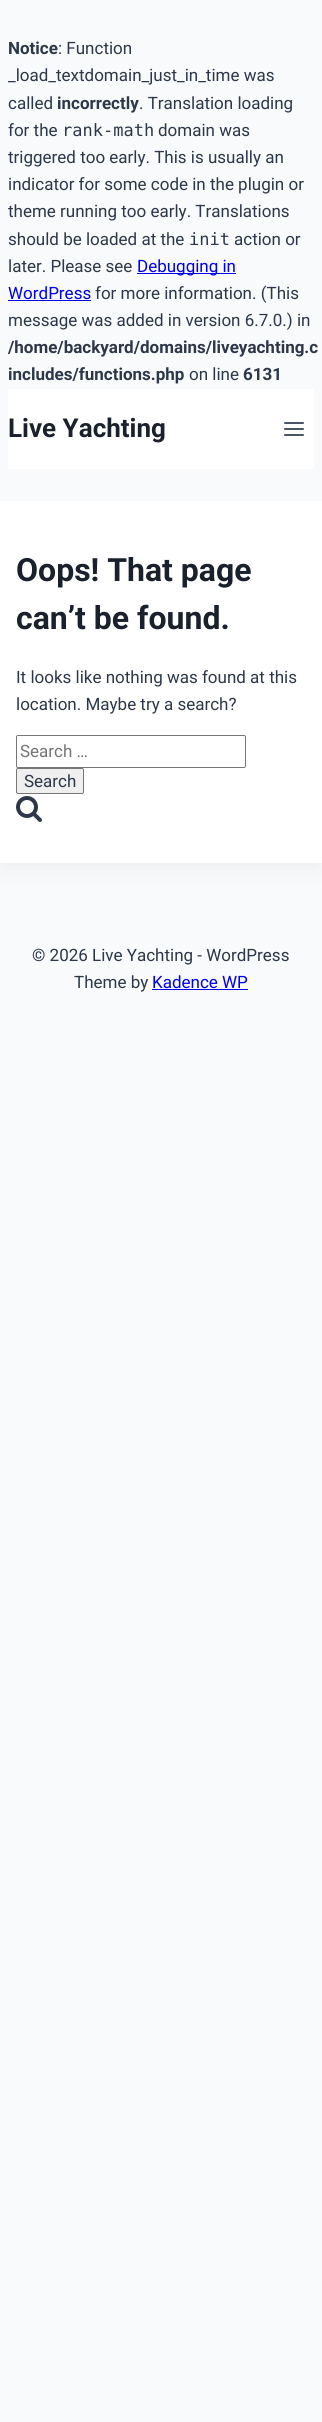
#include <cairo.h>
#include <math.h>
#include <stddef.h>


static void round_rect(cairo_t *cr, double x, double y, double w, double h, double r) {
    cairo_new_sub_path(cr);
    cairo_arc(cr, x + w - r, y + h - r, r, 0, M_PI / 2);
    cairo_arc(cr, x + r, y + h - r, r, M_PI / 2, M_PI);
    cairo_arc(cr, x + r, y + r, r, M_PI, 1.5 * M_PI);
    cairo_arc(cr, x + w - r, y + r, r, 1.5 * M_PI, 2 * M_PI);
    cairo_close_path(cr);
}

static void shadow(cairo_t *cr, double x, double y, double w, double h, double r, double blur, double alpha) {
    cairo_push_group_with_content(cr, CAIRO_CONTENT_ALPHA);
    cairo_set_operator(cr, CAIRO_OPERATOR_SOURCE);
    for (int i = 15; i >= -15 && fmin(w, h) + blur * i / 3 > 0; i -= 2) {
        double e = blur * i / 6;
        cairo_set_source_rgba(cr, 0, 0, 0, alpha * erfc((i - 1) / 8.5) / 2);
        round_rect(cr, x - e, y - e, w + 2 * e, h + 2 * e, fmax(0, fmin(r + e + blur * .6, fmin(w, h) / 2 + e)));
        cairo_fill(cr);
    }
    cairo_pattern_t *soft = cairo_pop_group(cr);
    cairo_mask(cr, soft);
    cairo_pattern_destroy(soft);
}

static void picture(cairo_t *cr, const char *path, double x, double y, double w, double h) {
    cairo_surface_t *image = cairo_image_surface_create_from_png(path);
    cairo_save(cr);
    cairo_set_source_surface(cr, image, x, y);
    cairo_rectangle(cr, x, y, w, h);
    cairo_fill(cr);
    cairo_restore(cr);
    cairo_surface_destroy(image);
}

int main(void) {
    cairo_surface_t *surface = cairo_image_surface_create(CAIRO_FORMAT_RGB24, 322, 2422);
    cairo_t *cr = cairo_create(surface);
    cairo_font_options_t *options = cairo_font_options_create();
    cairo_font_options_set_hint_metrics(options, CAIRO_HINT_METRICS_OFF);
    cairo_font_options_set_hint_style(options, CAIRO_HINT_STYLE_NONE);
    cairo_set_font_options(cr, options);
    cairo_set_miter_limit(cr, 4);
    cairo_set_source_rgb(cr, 0.969, 0.98, 0.988);
    cairo_paint(cr);
    cairo_select_font_face(cr, "Roboto", CAIRO_FONT_SLANT_NORMAL, CAIRO_FONT_WEIGHT_BOLD);
    cairo_set_font_size(cr, 17);
    cairo_set_source_rgb(cr, 0.176, 0.216, 0.282);
    cairo_move_to(cr, 8, 54);
    cairo_show_text(cr, "Notice");
    cairo_select_font_face(cr, "Roboto", CAIRO_FONT_SLANT_NORMAL, CAIRO_FONT_WEIGHT_NORMAL);
    cairo_move_to(cr, 58, 54);
    cairo_show_text(cr, ": Function");
    cairo_move_to(cr, 8, 81);
    cairo_show_text(cr, "_load_textdomain_just_in_time was");
    cairo_move_to(cr, 8, 109);
    cairo_show_text(cr, "called");
    cairo_select_font_face(cr, "Roboto", CAIRO_FONT_SLANT_NORMAL, CAIRO_FONT_WEIGHT_BOLD);
    cairo_move_to(cr, 57, 109);
    cairo_show_text(cr, "incorrectly");
    cairo_select_font_face(cr, "Roboto", CAIRO_FONT_SLANT_NORMAL, CAIRO_FONT_WEIGHT_NORMAL);
    cairo_move_to(cr, 139, 109);
    cairo_show_text(cr, ". Translation loading");
    cairo_move_to(cr, 8, 136);
    cairo_show_text(cr, "for the");
    cairo_select_font_face(cr, "DejaVu Sans Mono", CAIRO_FONT_SLANT_NORMAL, CAIRO_FONT_WEIGHT_NORMAL);
    cairo_move_to(cr, 62, 136);
    cairo_show_text(cr, "rank-math");
    cairo_select_font_face(cr, "Roboto", CAIRO_FONT_SLANT_NORMAL, CAIRO_FONT_WEIGHT_NORMAL);
    cairo_move_to(cr, 158, 136);
    cairo_show_text(cr, "domain was");
    cairo_move_to(cr, 8, 163);
    cairo_show_text(cr, "triggered too early. This is usually an");
    cairo_move_to(cr, 8, 190);
    cairo_show_text(cr, "indicator for some code in the plugin or");
    cairo_move_to(cr, 8, 217);
    cairo_show_text(cr, "theme running too early. Translations");
    cairo_move_to(cr, 8, 245);
    cairo_show_text(cr, "should be loaded at the");
    cairo_select_font_face(cr, "DejaVu Sans Mono", CAIRO_FONT_SLANT_NORMAL, CAIRO_FONT_WEIGHT_NORMAL);
    cairo_move_to(cr, 189, 245);
    cairo_show_text(cr, "init");
    cairo_select_font_face(cr, "Roboto", CAIRO_FONT_SLANT_NORMAL, CAIRO_FONT_WEIGHT_NORMAL);
    cairo_move_to(cr, 234, 245);
    cairo_show_text(cr, "action or");
    cairo_move_to(cr, 8, 272);
    cairo_show_text(cr, "later. Please see");
    cairo_set_source_rgb(cr, 0, 0, 0.933);
    cairo_rectangle(cr, 137, 273, 99, 1);
    cairo_fill(cr);
    cairo_move_to(cr, 137, 272);
    cairo_show_text(cr, "Debugging in");
    cairo_move_to(cr, 8, 299);
    cairo_show_text(cr, "WordPress");
    cairo_rectangle(cr, 8, 300, 83, 1);
    cairo_fill(cr);
    cairo_set_source_rgb(cr, 0.176, 0.216, 0.282);
    cairo_move_to(cr, 95, 299);
    cairo_show_text(cr, "for more information. (This");
    cairo_move_to(cr, 8, 326);
    cairo_show_text(cr, "message was added in version 6.7.0.) in");
    cairo_select_font_face(cr, "Roboto", CAIRO_FONT_SLANT_NORMAL, CAIRO_FONT_WEIGHT_BOLD);
    cairo_move_to(cr, 8, 353);
    cairo_show_text(cr, "/home/backyard/domains/liveyachting.c");
    cairo_move_to(cr, 8, 380);
    cairo_show_text(cr, "includes/functions.php");
    cairo_select_font_face(cr, "Roboto", CAIRO_FONT_SLANT_NORMAL, CAIRO_FONT_WEIGHT_NORMAL);
    cairo_move_to(cr, 189, 380);
    cairo_show_text(cr, "on line");
    cairo_select_font_face(cr, "Roboto", CAIRO_FONT_SLANT_NORMAL, CAIRO_FONT_WEIGHT_BOLD);
    cairo_move_to(cr, 243, 380);
    cairo_show_text(cr, "6131");
    cairo_set_source_rgb(cr, 1, 1, 1);
    cairo_rectangle(cr, 8, 389, 306, 80);
    cairo_fill(cr);
    cairo_set_font_size(cr, 26);
    cairo_set_source_rgb(cr, 0.102, 0.125, 0.173);
    cairo_move_to(cr, 8, 437);
    cairo_show_text(cr, "Live Yachting");
    picture(cr, "img1.png", 284, 422, 20, 14);
    cairo_set_source_rgb(cr, 0, 0, 0);
    shadow(cr, 2, 526, 318, 342, 0, 12.5, 0.05);
    cairo_set_source_rgb(cr, 1, 1, 1);
    cairo_rectangle(cr, 0, 501, 322, 362);
    cairo_fill(cr);
    cairo_set_font_size(cr, 32);
    cairo_set_source_rgb(cr, 0.102, 0.125, 0.173);
    cairo_move_to(cr, 16, 581);
    cairo_show_text(cr, "Oops! That page");
    cairo_move_to(cr, 16, 629);
    cairo_show_text(cr, "can’t be found.");
    cairo_select_font_face(cr, "Roboto", CAIRO_FONT_SLANT_NORMAL, CAIRO_FONT_WEIGHT_NORMAL);
    cairo_set_font_size(cr, 17);
    cairo_set_source_rgb(cr, 0.176, 0.216, 0.282);
    cairo_move_to(cr, 16, 683);
    cairo_show_text(cr, "It looks like nothing was found at this");
    cairo_move_to(cr, 16, 710);
    cairo_show_text(cr, "location. Maybe try a search?");
    round_rect(cr, 16.5, 735.5, 229, 32, 1.5);
    cairo_set_source_rgb(cr, 0.463, 0.463, 0.463);
    cairo_set_line_width(cr, 1);
    cairo_stroke(cr);
    cairo_set_source_rgb(cr, 0.459, 0.459, 0.459);
    cairo_move_to(cr, 20, 757);
    cairo_show_text(cr, "Search …");
    cairo_set_source_rgb(cr, 0.937, 0.937, 0.937);
    round_rect(cr, 16.5, 768.5, 67, 25, 1.5);
    cairo_fill_preserve(cr);
    cairo_set_source_rgb(cr, 0.463, 0.463, 0.463);
    cairo_stroke(cr);
    cairo_set_source_rgb(cr, 0.176, 0.216, 0.282);
    cairo_move_to(cr, 24, 787);
    cairo_show_text(cr, "Search");
    picture(cr, "img2.png", 16, 796, 26, 26);
    cairo_move_to(cr, 32, 961);
    cairo_show_text(cr, "© 2026 Live Yachting - WordPress");
    cairo_move_to(cr, 74, 988);
    cairo_show_text(cr, "Theme by");
    cairo_set_source_rgb(cr, 0, 0, 0.933);
    cairo_move_to(cr, 152, 988);
    cairo_show_text(cr, "Kadence WP");
    cairo_rectangle(cr, 152, 989, 96, 1);
    cairo_fill(cr);
    cairo_surface_write_to_png(surface, "page.png");
    cairo_font_options_destroy(options);
    cairo_destroy(cr);
    cairo_surface_destroy(surface);
    return 0;
}
